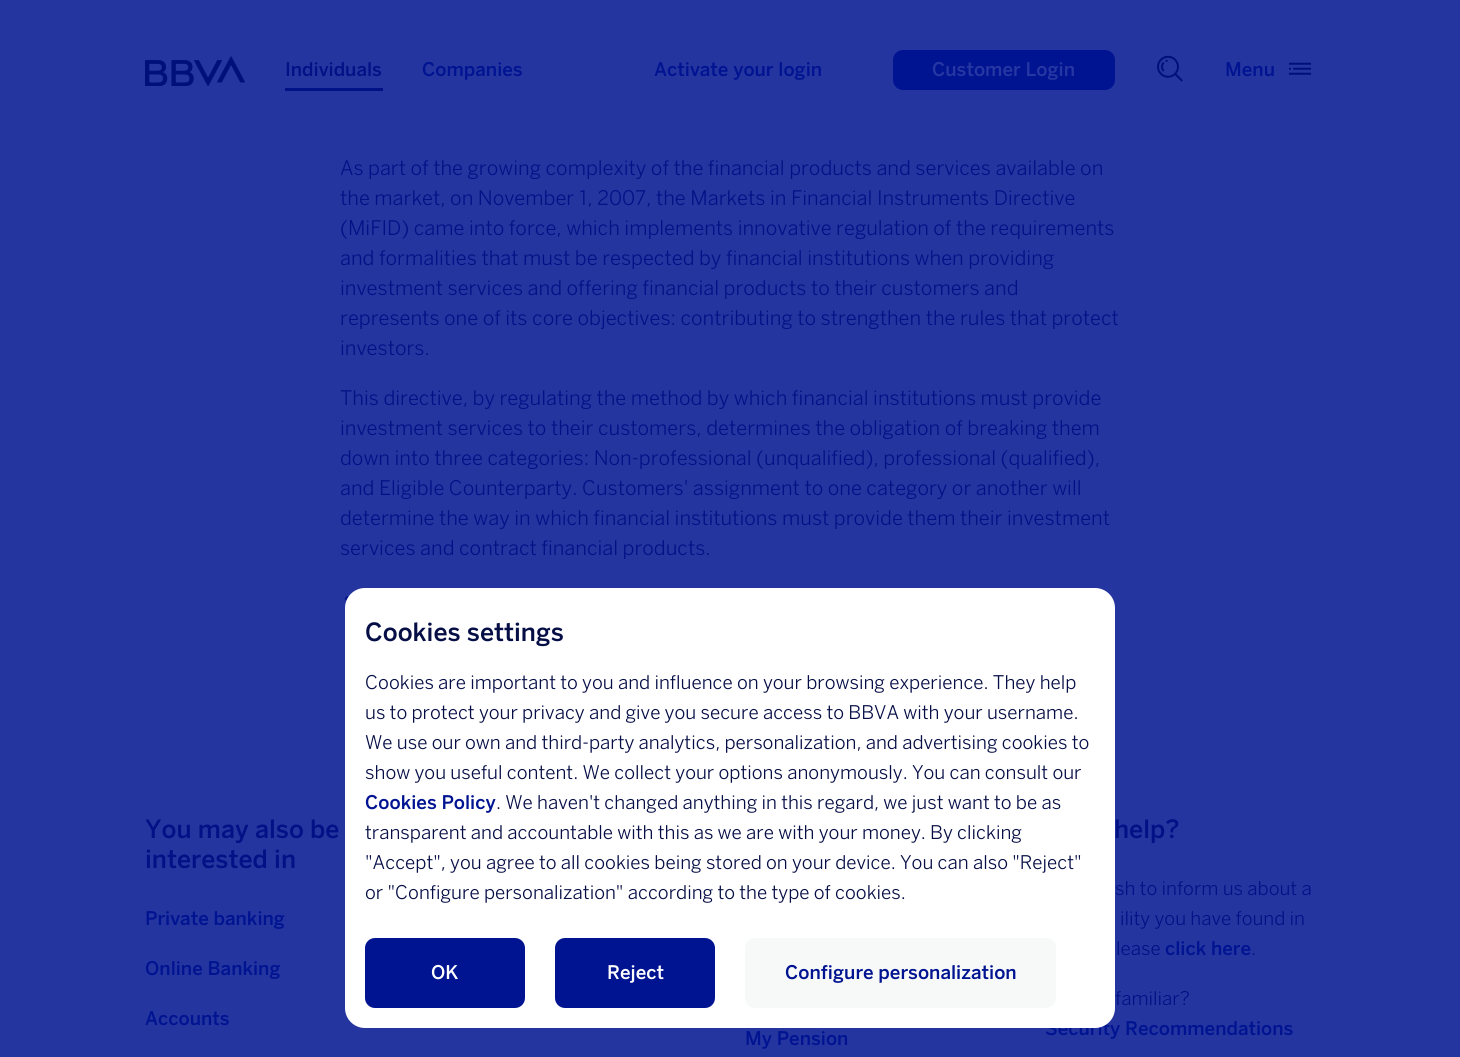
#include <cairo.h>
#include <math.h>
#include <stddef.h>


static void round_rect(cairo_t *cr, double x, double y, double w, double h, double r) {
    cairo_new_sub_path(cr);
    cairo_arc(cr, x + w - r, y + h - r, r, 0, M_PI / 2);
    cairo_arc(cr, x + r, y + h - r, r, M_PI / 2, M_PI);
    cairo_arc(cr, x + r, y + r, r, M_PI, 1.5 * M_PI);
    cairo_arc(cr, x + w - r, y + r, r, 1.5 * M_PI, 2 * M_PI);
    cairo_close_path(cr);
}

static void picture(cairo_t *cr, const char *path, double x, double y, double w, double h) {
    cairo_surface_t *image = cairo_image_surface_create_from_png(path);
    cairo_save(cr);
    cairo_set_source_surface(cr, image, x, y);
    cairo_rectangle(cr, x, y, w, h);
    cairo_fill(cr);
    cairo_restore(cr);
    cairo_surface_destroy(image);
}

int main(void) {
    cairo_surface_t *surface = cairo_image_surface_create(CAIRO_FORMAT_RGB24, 1460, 1057);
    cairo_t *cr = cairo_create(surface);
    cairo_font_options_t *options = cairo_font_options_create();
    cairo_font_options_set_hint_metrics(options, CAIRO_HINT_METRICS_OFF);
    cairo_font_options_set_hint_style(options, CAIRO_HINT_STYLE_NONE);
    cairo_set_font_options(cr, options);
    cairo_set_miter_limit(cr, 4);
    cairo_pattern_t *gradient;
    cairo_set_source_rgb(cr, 0.145, 0.208, 0.627);
    cairo_paint(cr);
    picture(cr, "img1.png", 145, 56, 100, 30);
    cairo_select_font_face(cr, "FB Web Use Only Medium", CAIRO_FONT_SLANT_NORMAL, CAIRO_FONT_WEIGHT_NORMAL);
    cairo_set_font_size(cr, 18.75);
    cairo_set_source_rgb(cr, 0.004, 0.071, 0.525);
    cairo_move_to(cr, 285, 76);
    cairo_show_text(cr, "Individuals");
    cairo_rectangle(cr, 285, 88, 98, 3);
    cairo_fill(cr);
    cairo_set_source_rgb(cr, 0, 0.075, 0.569);
    cairo_move_to(cr, 422, 76);
    cairo_show_text(cr, "Companies");
    cairo_move_to(cr, 654, 76);
    cairo_show_text(cr, "Activate your login");
    gradient = cairo_pattern_create_linear(654, 29, 1114, 111);
    cairo_pattern_add_color_stop_rgba(gradient, 0.5, 0.004, 0.071, 0.525, 1);
    cairo_pattern_add_color_stop_rgba(gradient, 0.5, 0, 0.075, 0.569, 1);
    cairo_set_source(cr, gradient);
    cairo_pattern_destroy(gradient);
    round_rect(cr, 893, 50, 222, 40, 10);
    cairo_fill(cr);
    cairo_set_source_rgb(cr, 0.149, 0.212, 0.635);
    cairo_move_to(cr, 932, 76);
    cairo_show_text(cr, "Customer Login");
    picture(cr, "img2.png", 1157, 55, 26, 27);
    cairo_set_source_rgb(cr, 0, 0.075, 0.569);
    cairo_move_to(cr, 1225, 76);
    cairo_show_text(cr, "Menu");
    picture(cr, "img3.png", 1288, 62, 23, 13);
    picture(cr, "img4.png", 345, 596, 4, 6);
    cairo_move_to(cr, 1045, 1035);
    cairo_show_text(cr, "Security Recommendations");
    cairo_set_source_rgb(cr, 1, 1, 1);
    round_rect(cr, 345, 588, 770, 440, 20);
    cairo_fill(cr);
    cairo_set_font_size(cr, 25);
    cairo_set_source_rgb(cr, 0.027, 0.055, 0.275);
    cairo_move_to(cr, 365, 641);
    cairo_show_text(cr, "Cookies settings");
    cairo_select_font_face(cr, "FB Web Use Only Light", CAIRO_FONT_SLANT_NORMAL, CAIRO_FONT_WEIGHT_NORMAL);
    cairo_set_font_size(cr, 18.75);
    cairo_move_to(cr, 365, 689);
    cairo_show_text(cr, "Cookies are important to you and influence on your browsing experience. They help");
    cairo_move_to(cr, 365, 719);
    cairo_show_text(cr, "us to protect your privacy and give you secure access to BBVA with your username.");
    cairo_move_to(cr, 365, 749);
    cairo_show_text(cr, "We use our own and third-party analytics, personalization, and advertising cookies to");
    cairo_move_to(cr, 365, 779);
    cairo_show_text(cr, "show you useful content. We collect your options anonymously. You can consult our");
    cairo_select_font_face(cr, "FB Web Use Only Medium", CAIRO_FONT_SLANT_NORMAL, CAIRO_FONT_WEIGHT_NORMAL);
    cairo_set_source_rgb(cr, 0, 0.075, 0.569);
    cairo_move_to(cr, 365, 809);
    cairo_show_text(cr, "Cookies Policy");
    cairo_select_font_face(cr, "FB Web Use Only Light", CAIRO_FONT_SLANT_NORMAL, CAIRO_FONT_WEIGHT_NORMAL);
    cairo_set_source_rgb(cr, 0.027, 0.055, 0.275);
    cairo_move_to(cr, 496, 809);
    cairo_show_text(cr, ". We haven't changed anything in this regard, we just want to be as");
    cairo_move_to(cr, 365, 839);
    cairo_show_text(cr, "transparent and accountable with this as we are with your money. By clicking");
    cairo_move_to(cr, 365, 869);
    cairo_show_text(cr, "\"Accept\", you agree to all cookies being stored on your device. You can also \"Reject\"");
    cairo_move_to(cr, 365, 899);
    cairo_show_text(cr, "or \"Configure personalization\" according to the type of cookies.");
    gradient = cairo_pattern_create_linear(190, 943, 528, 1002);
    cairo_pattern_add_color_stop_rgba(gradient, 0.5, 0.027, 0.055, 0.275, 1);
    cairo_pattern_add_color_stop_rgba(gradient, 0.5, 0, 0.075, 0.569, 1);
    cairo_set_source(cr, gradient);
    cairo_pattern_destroy(gradient);
    round_rect(cr, 365, 938, 160, 70, 10);
    cairo_fill(cr);
    cairo_select_font_face(cr, "FB Web Use Only Medium", CAIRO_FONT_SLANT_NORMAL, CAIRO_FONT_WEIGHT_NORMAL);
    cairo_set_source_rgb(cr, 1, 1, 1);
    cairo_move_to(cr, 431, 979);
    cairo_show_text(cr, "OK");
    gradient = cairo_pattern_create_linear(380, 943, 718, 1002);
    cairo_pattern_add_color_stop_rgba(gradient, 0.5, 0.027, 0.055, 0.275, 1);
    cairo_pattern_add_color_stop_rgba(gradient, 0.5, 0, 0.075, 0.569, 1);
    cairo_set_source(cr, gradient);
    cairo_pattern_destroy(gradient);
    round_rect(cr, 555, 938, 160, 70, 10);
    cairo_fill(cr);
    cairo_set_source_rgb(cr, 1, 1, 1);
    cairo_move_to(cr, 607, 979);
    cairo_show_text(cr, "Reject");
    gradient = cairo_pattern_create_linear(410, 916, 1056, 1029);
    cairo_pattern_add_color_stop_rgba(gradient, 0.5, 1, 1, 1, 1);
    cairo_pattern_add_color_stop_rgba(gradient, 0.5, 0.969, 0.973, 0.973, 1);
    cairo_set_source(cr, gradient);
    cairo_pattern_destroy(gradient);
    round_rect(cr, 745, 938, 311, 70, 10);
    cairo_fill(cr);
    cairo_set_source_rgb(cr, 0, 0.075, 0.569);
    cairo_move_to(cr, 785, 979);
    cairo_show_text(cr, "Configure personalization");
    cairo_select_font_face(cr, "FB Web Use Only Light", CAIRO_FONT_SLANT_NORMAL, CAIRO_FONT_WEIGHT_NORMAL);
    cairo_set_font_size(cr, 20);
    cairo_set_source_rgb(cr, 0.004, 0.071, 0.525);
    cairo_move_to(cr, 340, 175);
    cairo_show_text(cr, "As part of the growing complexity of the financial products and services available on");
    cairo_move_to(cr, 340, 205);
    cairo_show_text(cr, "the market, on November 1, 2007, the Markets in Financial Instruments Directive");
    cairo_move_to(cr, 340, 235);
    cairo_show_text(cr, "(MiFID) came into force, which implements innovative regulation of the requirements");
    cairo_move_to(cr, 340, 265);
    cairo_show_text(cr, "and formalities that must be respected by financial institutions when providing");
    cairo_move_to(cr, 340, 295);
    cairo_show_text(cr, "investment services and offering financial products to their customers and");
    cairo_move_to(cr, 340, 325);
    cairo_show_text(cr, "represents one of its core objectives: contributing to strengthen the rules that protect");
    cairo_move_to(cr, 340, 355);
    cairo_show_text(cr, "investors.");
    cairo_move_to(cr, 340, 405);
    cairo_show_text(cr, "This directive, by regulating the method by which financial institutions must provide");
    cairo_move_to(cr, 340, 435);
    cairo_show_text(cr, "investment services to their customers, determines the obligation of breaking them");
    cairo_move_to(cr, 340, 465);
    cairo_show_text(cr, "down into three categories: Non-professional (unqualified), professional (qualified),");
    cairo_move_to(cr, 340, 495);
    cairo_show_text(cr, "and Eligible Counterparty. Customers' assignment to one category or another will");
    cairo_move_to(cr, 340, 525);
    cairo_show_text(cr, "determine the way in which financial institutions must provide them their investment");
    cairo_move_to(cr, 340, 555);
    cairo_show_text(cr, "services and contract financial products.");
    cairo_select_font_face(cr, "FB Web Use Only Medium", CAIRO_FONT_SLANT_NORMAL, CAIRO_FONT_WEIGHT_NORMAL);
    cairo_set_font_size(cr, 25);
    cairo_move_to(cr, 145, 838);
    cairo_show_text(cr, "You may also be");
    cairo_move_to(cr, 145, 868);
    cairo_show_text(cr, "interested in");
    cairo_set_font_size(cr, 18.75);
    cairo_set_source_rgb(cr, 0, 0.075, 0.569);
    cairo_move_to(cr, 145, 925);
    cairo_show_text(cr, "Private banking");
    cairo_move_to(cr, 145, 975);
    cairo_show_text(cr, "Online Banking");
    cairo_move_to(cr, 145, 1025);
    cairo_show_text(cr, "Accounts");
    cairo_move_to(cr, 745, 1045);
    cairo_show_text(cr, "My Pension");
    cairo_set_font_size(cr, 25);
    cairo_set_source_rgb(cr, 0.004, 0.071, 0.525);
    cairo_move_to(cr, 1114, 838);
    cairo_show_text(cr, "help?");
    cairo_select_font_face(cr, "FB Web Use Only Light", CAIRO_FONT_SLANT_NORMAL, CAIRO_FONT_WEIGHT_NORMAL);
    cairo_set_font_size(cr, 18.75);
    cairo_move_to(cr, 1115, 895);
    cairo_show_text(cr, "sh to inform us about a");
    cairo_move_to(cr, 1120, 925);
    cairo_show_text(cr, "ility you have found in");
    cairo_move_to(cr, 1116, 955);
    cairo_show_text(cr, "lease");
    cairo_select_font_face(cr, "FB Web Use Only Medium", CAIRO_FONT_SLANT_NORMAL, CAIRO_FONT_WEIGHT_NORMAL);
    cairo_set_source_rgb(cr, 0, 0.075, 0.569);
    cairo_move_to(cr, 1165, 955);
    cairo_show_text(cr, "click here");
    cairo_select_font_face(cr, "FB Web Use Only Light", CAIRO_FONT_SLANT_NORMAL, CAIRO_FONT_WEIGHT_NORMAL);
    cairo_set_source_rgb(cr, 0.004, 0.071, 0.525);
    cairo_move_to(cr, 1251, 955);
    cairo_show_text(cr, ".");
    cairo_move_to(cr, 1115, 1005);
    cairo_show_text(cr, "familiar?");
    cairo_surface_write_to_png(surface, "page.png");
    cairo_font_options_destroy(options);
    cairo_destroy(cr);
    cairo_surface_destroy(surface);
    return 0;
}
